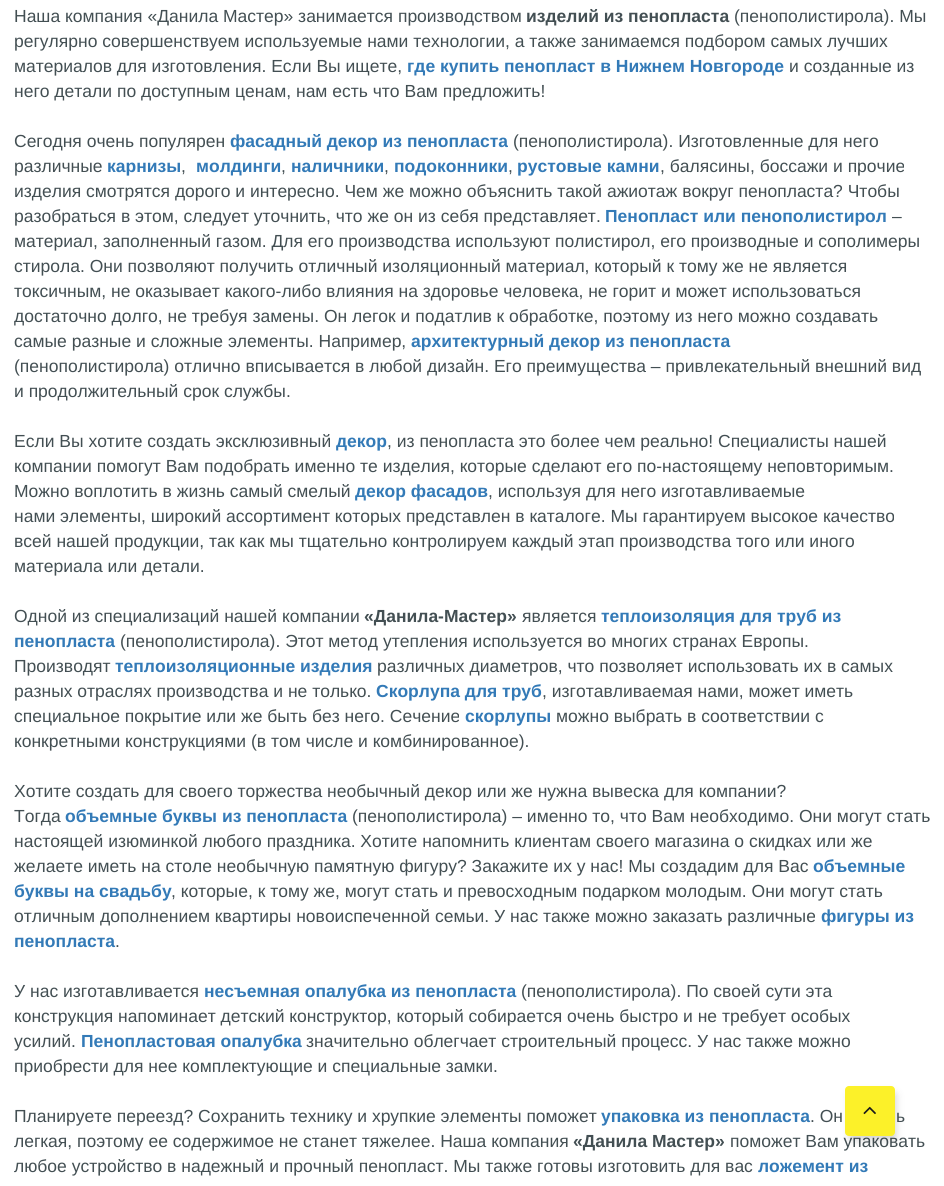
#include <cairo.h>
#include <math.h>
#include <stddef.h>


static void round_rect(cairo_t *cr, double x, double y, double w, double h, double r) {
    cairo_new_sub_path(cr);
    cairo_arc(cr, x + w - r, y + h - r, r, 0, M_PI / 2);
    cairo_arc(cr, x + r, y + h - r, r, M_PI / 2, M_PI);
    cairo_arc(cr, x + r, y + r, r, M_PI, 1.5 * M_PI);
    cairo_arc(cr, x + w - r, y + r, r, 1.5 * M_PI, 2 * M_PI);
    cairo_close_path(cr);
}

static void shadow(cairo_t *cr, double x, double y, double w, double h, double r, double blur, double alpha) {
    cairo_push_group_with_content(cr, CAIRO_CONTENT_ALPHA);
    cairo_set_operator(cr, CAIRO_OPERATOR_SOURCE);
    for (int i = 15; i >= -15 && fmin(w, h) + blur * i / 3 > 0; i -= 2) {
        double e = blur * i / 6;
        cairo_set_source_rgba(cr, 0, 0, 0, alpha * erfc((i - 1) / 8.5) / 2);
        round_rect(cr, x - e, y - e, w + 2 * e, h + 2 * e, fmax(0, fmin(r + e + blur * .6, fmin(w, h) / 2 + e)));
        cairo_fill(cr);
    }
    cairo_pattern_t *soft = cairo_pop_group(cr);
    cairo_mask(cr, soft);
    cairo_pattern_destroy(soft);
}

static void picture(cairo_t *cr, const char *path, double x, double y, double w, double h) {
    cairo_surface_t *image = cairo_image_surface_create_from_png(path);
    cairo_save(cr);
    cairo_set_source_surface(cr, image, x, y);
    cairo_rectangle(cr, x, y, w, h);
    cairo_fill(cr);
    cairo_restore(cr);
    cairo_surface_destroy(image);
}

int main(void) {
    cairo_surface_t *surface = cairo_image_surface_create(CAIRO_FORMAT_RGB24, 944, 1186);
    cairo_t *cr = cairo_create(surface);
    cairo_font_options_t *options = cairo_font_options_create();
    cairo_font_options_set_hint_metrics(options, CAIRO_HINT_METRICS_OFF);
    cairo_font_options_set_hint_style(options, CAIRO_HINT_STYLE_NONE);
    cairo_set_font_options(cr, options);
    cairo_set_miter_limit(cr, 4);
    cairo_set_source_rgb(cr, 1, 1, 1);
    cairo_paint(cr);
    cairo_select_font_face(cr, "Liberation Sans", CAIRO_FONT_SLANT_NORMAL, CAIRO_FONT_WEIGHT_NORMAL);
    cairo_set_font_size(cr, 17.5);
    cairo_set_source_rgb(cr, 0.263, 0.31, 0.325);
    cairo_move_to(cr, 14, 22);
    cairo_show_text(cr, "Наша компания «Данила Мастер» занимается производством");
    cairo_select_font_face(cr, "Liberation Sans", CAIRO_FONT_SLANT_NORMAL, CAIRO_FONT_WEIGHT_BOLD);
    cairo_move_to(cr, 526, 22);
    cairo_show_text(cr, "изделий из пенопласта");
    cairo_select_font_face(cr, "Liberation Sans", CAIRO_FONT_SLANT_NORMAL, CAIRO_FONT_WEIGHT_NORMAL);
    cairo_move_to(cr, 734, 22);
    cairo_show_text(cr, "(пенополистирола). Мы");
    cairo_move_to(cr, 14, 47);
    cairo_show_text(cr, "регулярно совершенствуем используемые нами технологии, а также занимаемся подбором самых лучших");
    cairo_move_to(cr, 14, 72);
    cairo_show_text(cr, "материалов для изготовления. Если Вы ищете,");
    cairo_select_font_face(cr, "Liberation Sans", CAIRO_FONT_SLANT_NORMAL, CAIRO_FONT_WEIGHT_BOLD);
    cairo_set_source_rgb(cr, 0.2, 0.478, 0.718);
    cairo_move_to(cr, 407, 72);
    cairo_show_text(cr, "где купить пенопласт в Нижнем Новгороде");
    cairo_select_font_face(cr, "Liberation Sans", CAIRO_FONT_SLANT_NORMAL, CAIRO_FONT_WEIGHT_NORMAL);
    cairo_set_source_rgb(cr, 0.263, 0.31, 0.325);
    cairo_move_to(cr, 789, 72);
    cairo_show_text(cr, "и созданные из");
    cairo_move_to(cr, 14, 97);
    cairo_show_text(cr, "него детали по доступным ценам, нам есть что Вам предложить!");
    cairo_move_to(cr, 14, 147);
    cairo_show_text(cr, "Сегодня очень популярен");
    cairo_select_font_face(cr, "Liberation Sans", CAIRO_FONT_SLANT_NORMAL, CAIRO_FONT_WEIGHT_BOLD);
    cairo_set_source_rgb(cr, 0.2, 0.478, 0.718);
    cairo_move_to(cr, 230, 147);
    cairo_show_text(cr, "фасадный декор из пенопласта");
    cairo_select_font_face(cr, "Liberation Sans", CAIRO_FONT_SLANT_NORMAL, CAIRO_FONT_WEIGHT_NORMAL);
    cairo_set_source_rgb(cr, 0.263, 0.31, 0.325);
    cairo_move_to(cr, 513, 147);
    cairo_show_text(cr, "(пенополистирола). Изготовленные для него");
    cairo_move_to(cr, 14, 172);
    cairo_show_text(cr, "различные");
    cairo_select_font_face(cr, "Liberation Sans", CAIRO_FONT_SLANT_NORMAL, CAIRO_FONT_WEIGHT_BOLD);
    cairo_set_source_rgb(cr, 0.2, 0.478, 0.718);
    cairo_move_to(cr, 107, 172);
    cairo_show_text(cr, "карнизы");
    cairo_select_font_face(cr, "Liberation Sans", CAIRO_FONT_SLANT_NORMAL, CAIRO_FONT_WEIGHT_NORMAL);
    cairo_set_source_rgb(cr, 0.263, 0.31, 0.325);
    cairo_move_to(cr, 181, 172);
    cairo_show_text(cr, ",");
    cairo_select_font_face(cr, "Liberation Sans", CAIRO_FONT_SLANT_NORMAL, CAIRO_FONT_WEIGHT_BOLD);
    cairo_set_source_rgb(cr, 0.2, 0.478, 0.718);
    cairo_move_to(cr, 196, 172);
    cairo_show_text(cr, "молдинги");
    cairo_select_font_face(cr, "Liberation Sans", CAIRO_FONT_SLANT_NORMAL, CAIRO_FONT_WEIGHT_NORMAL);
    cairo_set_source_rgb(cr, 0.263, 0.31, 0.325);
    cairo_move_to(cr, 281, 172);
    cairo_show_text(cr, ",");
    cairo_select_font_face(cr, "Liberation Sans", CAIRO_FONT_SLANT_NORMAL, CAIRO_FONT_WEIGHT_BOLD);
    cairo_set_source_rgb(cr, 0.2, 0.478, 0.718);
    cairo_move_to(cr, 291, 172);
    cairo_show_text(cr, "наличники");
    cairo_select_font_face(cr, "Liberation Sans", CAIRO_FONT_SLANT_NORMAL, CAIRO_FONT_WEIGHT_NORMAL);
    cairo_set_source_rgb(cr, 0.263, 0.31, 0.325);
    cairo_move_to(cr, 384, 172);
    cairo_show_text(cr, ",");
    cairo_select_font_face(cr, "Liberation Sans", CAIRO_FONT_SLANT_NORMAL, CAIRO_FONT_WEIGHT_BOLD);
    cairo_set_source_rgb(cr, 0.2, 0.478, 0.718);
    cairo_move_to(cr, 394, 172);
    cairo_show_text(cr, "подоконники");
    cairo_select_font_face(cr, "Liberation Sans", CAIRO_FONT_SLANT_NORMAL, CAIRO_FONT_WEIGHT_NORMAL);
    cairo_set_source_rgb(cr, 0.263, 0.31, 0.325);
    cairo_move_to(cr, 508, 172);
    cairo_show_text(cr, ",");
    cairo_select_font_face(cr, "Liberation Sans", CAIRO_FONT_SLANT_NORMAL, CAIRO_FONT_WEIGHT_BOLD);
    cairo_set_source_rgb(cr, 0.2, 0.478, 0.718);
    cairo_move_to(cr, 517, 172);
    cairo_show_text(cr, "рустовые камни");
    cairo_select_font_face(cr, "Liberation Sans", CAIRO_FONT_SLANT_NORMAL, CAIRO_FONT_WEIGHT_NORMAL);
    cairo_set_source_rgb(cr, 0.263, 0.31, 0.325);
    cairo_move_to(cr, 660, 172);
    cairo_show_text(cr, ", балясины, боссажи и прочие");
    cairo_move_to(cr, 14, 197);
    cairo_show_text(cr, "изделия смотрятся дорого и интересно. Чем же можно объяснить такой ажиотаж вокруг пенопласта? Чтобы");
    cairo_move_to(cr, 14, 222);
    cairo_show_text(cr, "разобраться в этом, следует уточнить, что же он из себя представляет.");
    cairo_select_font_face(cr, "Liberation Sans", CAIRO_FONT_SLANT_NORMAL, CAIRO_FONT_WEIGHT_BOLD);
    cairo_set_source_rgb(cr, 0.2, 0.478, 0.718);
    cairo_move_to(cr, 605, 222);
    cairo_show_text(cr, "Пенопласт или пенополистирол");
    cairo_select_font_face(cr, "Liberation Sans", CAIRO_FONT_SLANT_NORMAL, CAIRO_FONT_WEIGHT_NORMAL);
    cairo_set_source_rgb(cr, 0.263, 0.31, 0.325);
    cairo_move_to(cr, 892, 222);
    cairo_show_text(cr, "–");
    cairo_move_to(cr, 14, 247);
    cairo_show_text(cr, "материал, заполненный газом. Для его производства используют полистирол, его производные и сополимеры");
    cairo_move_to(cr, 14, 272);
    cairo_show_text(cr, "стирола. Они позволяют получить отличный изоляционный материал, который к тому же не является");
    cairo_move_to(cr, 14, 297);
    cairo_show_text(cr, "токсичным, не оказывает какого-либо влияния на здоровье человека, не горит и может использоваться");
    cairo_move_to(cr, 14, 322);
    cairo_show_text(cr, "достаточно долго, не требуя замены. Он легок и податлив к обработке, поэтому из него можно создавать");
    cairo_move_to(cr, 14, 347);
    cairo_show_text(cr, "самые разные и сложные элементы. Например,");
    cairo_select_font_face(cr, "Liberation Sans", CAIRO_FONT_SLANT_NORMAL, CAIRO_FONT_WEIGHT_BOLD);
    cairo_set_source_rgb(cr, 0.2, 0.478, 0.718);
    cairo_move_to(cr, 411, 347);
    cairo_show_text(cr, "архитектурный декор из пенопласта");
    cairo_select_font_face(cr, "Liberation Sans", CAIRO_FONT_SLANT_NORMAL, CAIRO_FONT_WEIGHT_NORMAL);
    cairo_set_source_rgb(cr, 0.263, 0.31, 0.325);
    cairo_move_to(cr, 14, 372);
    cairo_show_text(cr, "(пенополистирола) отлично вписывается в любой дизайн. Его преимущества – привлекательный внешний вид");
    cairo_move_to(cr, 14, 397);
    cairo_show_text(cr, "и продолжительный срок службы.");
    cairo_move_to(cr, 14, 447);
    cairo_show_text(cr, "Если Вы хотите создать эксклюзивный");
    cairo_select_font_face(cr, "Liberation Sans", CAIRO_FONT_SLANT_NORMAL, CAIRO_FONT_WEIGHT_BOLD);
    cairo_set_source_rgb(cr, 0.2, 0.478, 0.718);
    cairo_move_to(cr, 336, 447);
    cairo_show_text(cr, "декор");
    cairo_select_font_face(cr, "Liberation Sans", CAIRO_FONT_SLANT_NORMAL, CAIRO_FONT_WEIGHT_NORMAL);
    cairo_set_source_rgb(cr, 0.263, 0.31, 0.325);
    cairo_move_to(cr, 387, 447);
    cairo_show_text(cr, ", из пенопласта это более чем реально! Специалисты нашей");
    cairo_move_to(cr, 14, 472);
    cairo_show_text(cr, "компании помогут Вам подобрать именно те изделия, которые сделают его по-настоящему неповторимым.");
    cairo_move_to(cr, 14, 497);
    cairo_show_text(cr, "Можно воплотить в жизнь самый смелый");
    cairo_select_font_face(cr, "Liberation Sans", CAIRO_FONT_SLANT_NORMAL, CAIRO_FONT_WEIGHT_BOLD);
    cairo_set_source_rgb(cr, 0.2, 0.478, 0.718);
    cairo_move_to(cr, 355, 497);
    cairo_show_text(cr, "декор фасадов");
    cairo_select_font_face(cr, "Liberation Sans", CAIRO_FONT_SLANT_NORMAL, CAIRO_FONT_WEIGHT_NORMAL);
    cairo_set_source_rgb(cr, 0.263, 0.31, 0.325);
    cairo_move_to(cr, 488, 497);
    cairo_show_text(cr, ", используя для него изготавливаемые");
    cairo_move_to(cr, 14, 522);
    cairo_show_text(cr, "нами элементы, широкий ассортимент которых представлен в каталоге. Мы гарантируем высокое качество");
    cairo_move_to(cr, 14, 547);
    cairo_show_text(cr, "всей нашей продукции, так как мы тщательно контролируем каждый этап производства того или иного");
    cairo_move_to(cr, 14, 572);
    cairo_show_text(cr, "материала или детали.");
    cairo_move_to(cr, 14, 622);
    cairo_show_text(cr, "Одной из специализаций нашей компании");
    cairo_select_font_face(cr, "Liberation Sans", CAIRO_FONT_SLANT_NORMAL, CAIRO_FONT_WEIGHT_BOLD);
    cairo_move_to(cr, 364, 622);
    cairo_show_text(cr, "«Данила-Мастер»");
    cairo_select_font_face(cr, "Liberation Sans", CAIRO_FONT_SLANT_NORMAL, CAIRO_FONT_WEIGHT_NORMAL);
    cairo_move_to(cr, 522, 622);
    cairo_show_text(cr, "является");
    cairo_select_font_face(cr, "Liberation Sans", CAIRO_FONT_SLANT_NORMAL, CAIRO_FONT_WEIGHT_BOLD);
    cairo_set_source_rgb(cr, 0.2, 0.478, 0.718);
    cairo_move_to(cr, 601, 622);
    cairo_show_text(cr, "теплоизоляция для труб из");
    cairo_move_to(cr, 14, 647);
    cairo_show_text(cr, "пенопласта");
    cairo_select_font_face(cr, "Liberation Sans", CAIRO_FONT_SLANT_NORMAL, CAIRO_FONT_WEIGHT_NORMAL);
    cairo_set_source_rgb(cr, 0.263, 0.31, 0.325);
    cairo_move_to(cr, 120, 647);
    cairo_show_text(cr, "(пенополистирола). Этот метод утепления используется во многих странах Европы.");
    cairo_move_to(cr, 14, 672);
    cairo_show_text(cr, "Производят");
    cairo_select_font_face(cr, "Liberation Sans", CAIRO_FONT_SLANT_NORMAL, CAIRO_FONT_WEIGHT_BOLD);
    cairo_set_source_rgb(cr, 0.2, 0.478, 0.718);
    cairo_move_to(cr, 115, 672);
    cairo_show_text(cr, "теплоизоляционные изделия");
    cairo_select_font_face(cr, "Liberation Sans", CAIRO_FONT_SLANT_NORMAL, CAIRO_FONT_WEIGHT_NORMAL);
    cairo_set_source_rgb(cr, 0.263, 0.31, 0.325);
    cairo_move_to(cr, 377, 672);
    cairo_show_text(cr, "различных диаметров, что позволяет использовать их в самых");
    cairo_move_to(cr, 14, 697);
    cairo_show_text(cr, "разных отраслях производства и не только.");
    cairo_select_font_face(cr, "Liberation Sans", CAIRO_FONT_SLANT_NORMAL, CAIRO_FONT_WEIGHT_BOLD);
    cairo_set_source_rgb(cr, 0.2, 0.478, 0.718);
    cairo_move_to(cr, 376, 697);
    cairo_show_text(cr, "Скорлупа для труб");
    cairo_select_font_face(cr, "Liberation Sans", CAIRO_FONT_SLANT_NORMAL, CAIRO_FONT_WEIGHT_NORMAL);
    cairo_set_source_rgb(cr, 0.263, 0.31, 0.325);
    cairo_move_to(cr, 542, 697);
    cairo_show_text(cr, ", изготавливаемая нами, может иметь");
    cairo_move_to(cr, 14, 722);
    cairo_show_text(cr, "специальное покрытие или же быть без него. Сечение");
    cairo_select_font_face(cr, "Liberation Sans", CAIRO_FONT_SLANT_NORMAL, CAIRO_FONT_WEIGHT_BOLD);
    cairo_set_source_rgb(cr, 0.2, 0.478, 0.718);
    cairo_move_to(cr, 465, 722);
    cairo_show_text(cr, "скорлупы");
    cairo_select_font_face(cr, "Liberation Sans", CAIRO_FONT_SLANT_NORMAL, CAIRO_FONT_WEIGHT_NORMAL);
    cairo_set_source_rgb(cr, 0.263, 0.31, 0.325);
    cairo_move_to(cr, 556, 722);
    cairo_show_text(cr, "можно выбрать в соответствии с");
    cairo_move_to(cr, 14, 747);
    cairo_show_text(cr, "конкретными конструкциями (в том числе и комбинированное).");
    cairo_move_to(cr, 14, 797);
    cairo_show_text(cr, "Хотите создать для своего торжества необычный декор или же нужна вывеска для компании?");
    cairo_move_to(cr, 14, 822);
    cairo_show_text(cr, "Тогда");
    cairo_select_font_face(cr, "Liberation Sans", CAIRO_FONT_SLANT_NORMAL, CAIRO_FONT_WEIGHT_BOLD);
    cairo_set_source_rgb(cr, 0.2, 0.478, 0.718);
    cairo_move_to(cr, 65, 822);
    cairo_show_text(cr, "объемные буквы из пенопласта");
    cairo_select_font_face(cr, "Liberation Sans", CAIRO_FONT_SLANT_NORMAL, CAIRO_FONT_WEIGHT_NORMAL);
    cairo_set_source_rgb(cr, 0.263, 0.31, 0.325);
    cairo_move_to(cr, 352, 822);
    cairo_show_text(cr, "(пенополистирола) – именно то, что Вам необходимо. Они могут стать");
    cairo_move_to(cr, 14, 847);
    cairo_show_text(cr, "настоящей изюминкой любого праздника. Хотите напомнить клиентам своего магазина о скидках или же");
    cairo_move_to(cr, 14, 872);
    cairo_show_text(cr, "желаете иметь на столе необычную памятную фигуру? Закажите их у нас! Мы создадим для Вас");
    cairo_select_font_face(cr, "Liberation Sans", CAIRO_FONT_SLANT_NORMAL, CAIRO_FONT_WEIGHT_BOLD);
    cairo_set_source_rgb(cr, 0.2, 0.478, 0.718);
    cairo_move_to(cr, 813, 872);
    cairo_show_text(cr, "объемные");
    cairo_move_to(cr, 14, 897);
    cairo_show_text(cr, "буквы на свадьбу");
    cairo_select_font_face(cr, "Liberation Sans", CAIRO_FONT_SLANT_NORMAL, CAIRO_FONT_WEIGHT_NORMAL);
    cairo_set_source_rgb(cr, 0.263, 0.31, 0.325);
    cairo_move_to(cr, 171, 897);
    cairo_show_text(cr, ", которые, к тому же, могут стать и превосходным подарком молодым. Они могут стать");
    cairo_move_to(cr, 14, 922);
    cairo_show_text(cr, "отличным дополнением квартиры новоиспеченной семьи. У нас также можно заказать различные");
    cairo_select_font_face(cr, "Liberation Sans", CAIRO_FONT_SLANT_NORMAL, CAIRO_FONT_WEIGHT_BOLD);
    cairo_set_source_rgb(cr, 0.2, 0.478, 0.718);
    cairo_move_to(cr, 821, 922);
    cairo_show_text(cr, "фигуры из");
    cairo_move_to(cr, 14, 947);
    cairo_show_text(cr, "пенопласта");
    cairo_select_font_face(cr, "Liberation Sans", CAIRO_FONT_SLANT_NORMAL, CAIRO_FONT_WEIGHT_NORMAL);
    cairo_set_source_rgb(cr, 0.263, 0.31, 0.325);
    cairo_move_to(cr, 115, 947);
    cairo_show_text(cr, ".");
    cairo_move_to(cr, 14, 997);
    cairo_show_text(cr, "У нас изготавливается");
    cairo_select_font_face(cr, "Liberation Sans", CAIRO_FONT_SLANT_NORMAL, CAIRO_FONT_WEIGHT_BOLD);
    cairo_set_source_rgb(cr, 0.2, 0.478, 0.718);
    cairo_move_to(cr, 204, 997);
    cairo_show_text(cr, "несъемная опалубка из пенопласта");
    cairo_select_font_face(cr, "Liberation Sans", CAIRO_FONT_SLANT_NORMAL, CAIRO_FONT_WEIGHT_NORMAL);
    cairo_set_source_rgb(cr, 0.263, 0.31, 0.325);
    cairo_move_to(cr, 521, 997);
    cairo_show_text(cr, "(пенополистирола). По своей сути эта");
    cairo_move_to(cr, 14, 1022);
    cairo_show_text(cr, "конструкция напоминает детский конструктор, который собирается очень быстро и не требует особых");
    cairo_move_to(cr, 14, 1047);
    cairo_show_text(cr, "усилий.");
    cairo_select_font_face(cr, "Liberation Sans", CAIRO_FONT_SLANT_NORMAL, CAIRO_FONT_WEIGHT_BOLD);
    cairo_set_source_rgb(cr, 0.2, 0.478, 0.718);
    cairo_move_to(cr, 81, 1047);
    cairo_show_text(cr, "Пенопластовая опалубка");
    cairo_select_font_face(cr, "Liberation Sans", CAIRO_FONT_SLANT_NORMAL, CAIRO_FONT_WEIGHT_NORMAL);
    cairo_set_source_rgb(cr, 0.263, 0.31, 0.325);
    cairo_move_to(cr, 306, 1047);
    cairo_show_text(cr, "значительно облегчает строительный процесс. У нас также можно");
    cairo_move_to(cr, 14, 1072);
    cairo_show_text(cr, "приобрести для нее комплектующие и специальные замки.");
    cairo_move_to(cr, 14, 1122);
    cairo_show_text(cr, "Планируете переезд? Сохранить технику и хрупкие элементы поможет");
    cairo_select_font_face(cr, "Liberation Sans", CAIRO_FONT_SLANT_NORMAL, CAIRO_FONT_WEIGHT_BOLD);
    cairo_set_source_rgb(cr, 0.2, 0.478, 0.718);
    cairo_move_to(cr, 601, 1122);
    cairo_show_text(cr, "упаковка из пенопласта");
    cairo_select_font_face(cr, "Liberation Sans", CAIRO_FONT_SLANT_NORMAL, CAIRO_FONT_WEIGHT_NORMAL);
    cairo_set_source_rgb(cr, 0.263, 0.31, 0.325);
    cairo_move_to(cr, 810, 1122);
    cairo_show_text(cr, ". Он");
    cairo_move_to(cr, 896, 1122);
    cairo_show_text(cr, "ь");
    cairo_move_to(cr, 14, 1147);
    cairo_show_text(cr, "легкая, поэтому ее содержимое не станет тяжелее. Наша компания");
    cairo_select_font_face(cr, "Liberation Sans", CAIRO_FONT_SLANT_NORMAL, CAIRO_FONT_WEIGHT_BOLD);
    cairo_move_to(cr, 573, 1147);
    cairo_show_text(cr, "«Данила Мастер»");
    cairo_select_font_face(cr, "Liberation Sans", CAIRO_FONT_SLANT_NORMAL, CAIRO_FONT_WEIGHT_NORMAL);
    cairo_move_to(cr, 730, 1147);
    cairo_show_text(cr, "поможет Вам упаковать");
    cairo_move_to(cr, 14, 1172);
    cairo_show_text(cr, "любое устройство в надежный и прочный пенопласт. Мы также готовы изготовить для вас");
    cairo_select_font_face(cr, "Liberation Sans", CAIRO_FONT_SLANT_NORMAL, CAIRO_FONT_WEIGHT_BOLD);
    cairo_set_source_rgb(cr, 0.2, 0.478, 0.718);
    cairo_move_to(cr, 758, 1172);
    cairo_show_text(cr, "ложемент из");
    cairo_set_source_rgb(cr, 0, 0, 0);
    shadow(cr, 850, 1094, 45, 45, 1, 4.5, 0.21);
    cairo_set_source_rgb(cr, 0.988, 0.945, 0.161);
    round_rect(cr, 845, 1086, 50, 50, 4);
    cairo_fill(cr);
    picture(cr, "img1.png", 863, 1106, 13, 9);
    cairo_surface_write_to_png(surface, "page.png");
    cairo_font_options_destroy(options);
    cairo_destroy(cr);
    cairo_surface_destroy(surface);
    return 0;
}
